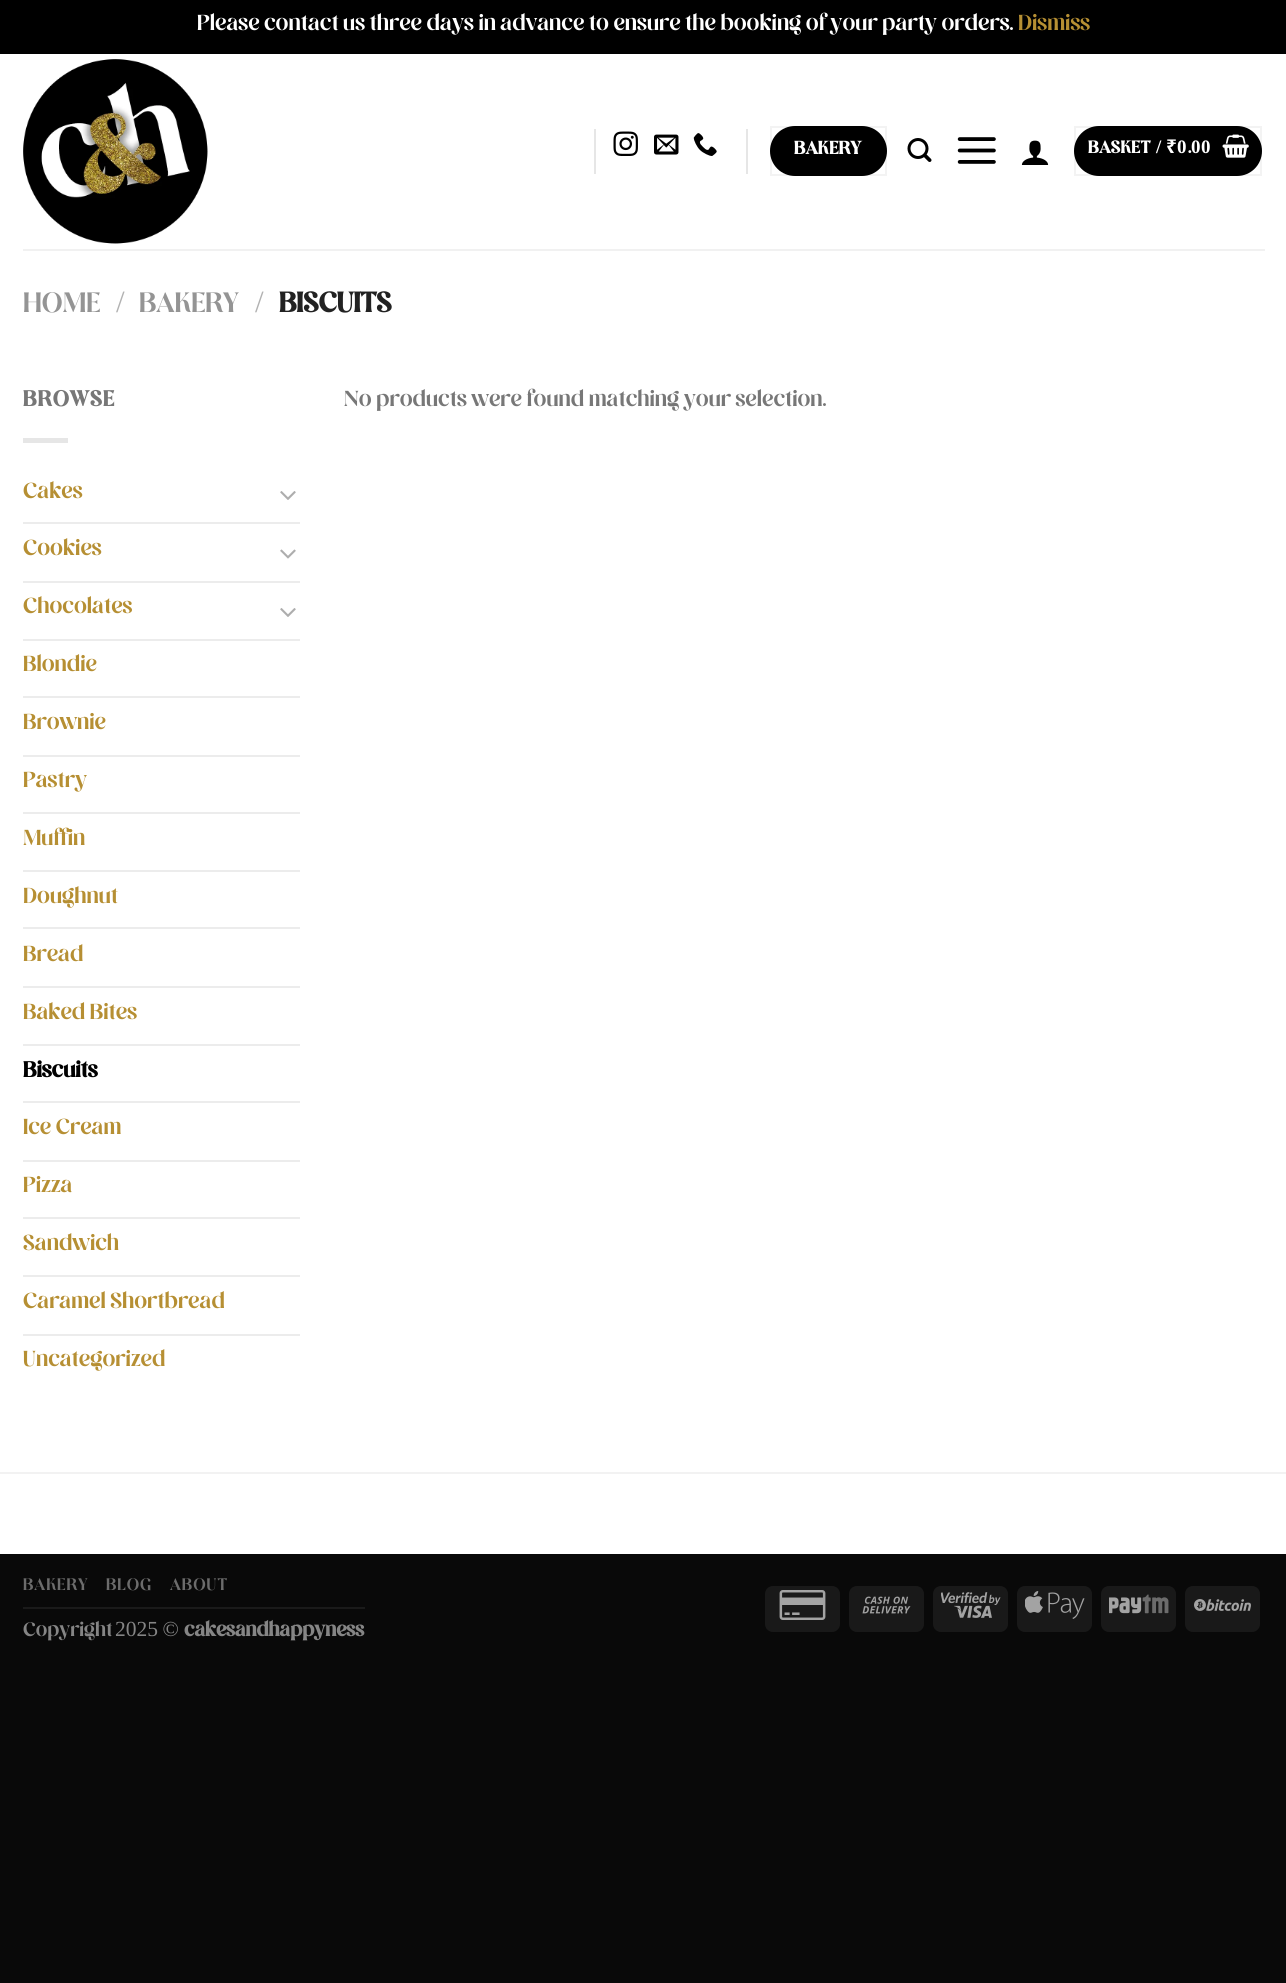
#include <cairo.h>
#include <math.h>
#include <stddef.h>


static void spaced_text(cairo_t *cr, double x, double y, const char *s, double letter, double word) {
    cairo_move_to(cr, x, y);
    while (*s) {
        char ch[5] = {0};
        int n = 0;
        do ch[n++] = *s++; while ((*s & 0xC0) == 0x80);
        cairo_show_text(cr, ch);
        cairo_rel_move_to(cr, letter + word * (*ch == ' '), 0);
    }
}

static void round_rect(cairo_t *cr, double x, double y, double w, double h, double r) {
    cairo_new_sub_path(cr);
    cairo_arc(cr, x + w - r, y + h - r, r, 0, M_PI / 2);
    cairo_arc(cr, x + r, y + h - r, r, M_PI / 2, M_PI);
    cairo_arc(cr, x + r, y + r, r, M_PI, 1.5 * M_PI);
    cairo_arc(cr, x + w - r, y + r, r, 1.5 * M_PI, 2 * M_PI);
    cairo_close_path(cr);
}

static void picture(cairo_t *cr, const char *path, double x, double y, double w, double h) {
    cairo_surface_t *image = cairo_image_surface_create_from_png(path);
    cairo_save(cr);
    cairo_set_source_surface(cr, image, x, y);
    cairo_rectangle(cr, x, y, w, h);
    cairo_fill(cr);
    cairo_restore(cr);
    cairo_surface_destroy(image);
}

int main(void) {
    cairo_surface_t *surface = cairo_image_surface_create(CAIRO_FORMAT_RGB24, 1286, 1983);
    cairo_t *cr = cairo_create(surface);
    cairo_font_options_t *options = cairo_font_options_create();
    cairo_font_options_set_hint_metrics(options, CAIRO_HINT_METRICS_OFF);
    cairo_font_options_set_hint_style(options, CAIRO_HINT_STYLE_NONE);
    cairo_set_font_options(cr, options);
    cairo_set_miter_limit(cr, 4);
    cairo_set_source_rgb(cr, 0.039, 0.039, 0.039);
    cairo_paint(cr);
    cairo_set_source_rgb(cr, 0, 0, 0);
    cairo_rectangle(cr, 0, 0, 1286, 54);
    cairo_fill(cr);
    cairo_select_font_face(cr, "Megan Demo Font", CAIRO_FONT_SLANT_NORMAL, CAIRO_FONT_WEIGHT_NORMAL);
    cairo_set_font_size(cr, 24);
    cairo_set_source_rgb(cr, 1, 1, 1);
    cairo_move_to(cr, 197, 30);
    cairo_show_text(cr, "Please contact us three days in advance to ensure the booking of your party orders.");
    cairo_set_source_rgb(cr, 0.714, 0.561, 0.2);
    cairo_move_to(cr, 1018, 30);
    cairo_show_text(cr, "Dismiss");
    cairo_set_source_rgb(cr, 1, 1, 1);
    cairo_rectangle(cr, 0, 54, 1286, 1500);
    cairo_fill(cr);
    picture(cr, "img1.png", 23, 59, 185, 185);
    cairo_set_source_rgb(cr, 0.902, 0.902, 0.902);
    cairo_rectangle(cr, 594, 129, 2, 45);
    cairo_fill(cr);
    picture(cr, "img2.png", 613, 131, 25, 25);
    picture(cr, "img3.png", 654, 134, 25, 21);
    picture(cr, "img4.png", 693, 133, 24, 23);
    cairo_rectangle(cr, 746, 129, 2, 45);
    cairo_fill(cr);
    cairo_set_source_rgb(cr, 0, 0, 0);
    round_rect(cr, 770, 126, 117, 50, 25);
    cairo_fill(cr);
    cairo_rectangle(cr, 771, 127, 115, 48);
    cairo_set_source_rgba(cr, 0, 0, 0, 0.05);
    cairo_stroke(cr);
    cairo_select_font_face(cr, "Megan Demo Font", CAIRO_FONT_SLANT_NORMAL, CAIRO_FONT_WEIGHT_BOLD);
    cairo_set_font_size(cr, 20);
    cairo_set_source_rgb(cr, 1, 1, 1);
    spaced_text(cr, 794, 154, "BAKERY", 0.5, 0);
    picture(cr, "img5.png", 907, 138, 25, 24);
    picture(cr, "img6.png", 957, 137, 39, 27);
    picture(cr, "img7.png", 1021, 140, 28, 25);
    cairo_set_source_rgb(cr, 0, 0, 0);
    round_rect(cr, 1074, 126, 188, 50, 25);
    cairo_fill(cr);
    cairo_rectangle(cr, 1075, 127, 186, 48);
    cairo_set_source_rgba(cr, 0, 0, 0, 0.05);
    cairo_stroke(cr);
    cairo_set_font_size(cr, 19);
    cairo_set_source_rgb(cr, 1, 1, 1);
    spaced_text(cr, 1088, 153, "BASKET", 0.5, 0);
    cairo_select_font_face(cr, "Liberation Serif", CAIRO_FONT_SLANT_NORMAL, CAIRO_FONT_WEIGHT_BOLD);
    spaced_text(cr, 1156, 153, "/", 0.5, 0);
    cairo_select_font_face(cr, "Noto Sans", CAIRO_FONT_SLANT_NORMAL, CAIRO_FONT_WEIGHT_BOLD);
    spaced_text(cr, 1166, 153, "₹", 0.5, 0);
    cairo_select_font_face(cr, "Liberation Serif", CAIRO_FONT_SLANT_NORMAL, CAIRO_FONT_WEIGHT_BOLD);
    spaced_text(cr, 1177, 153, "0", 0.5, 0);
    cairo_select_font_face(cr, "Megan Demo Font", CAIRO_FONT_SLANT_NORMAL, CAIRO_FONT_WEIGHT_BOLD);
    spaced_text(cr, 1188, 153, ".", 0.5, 0);
    cairo_select_font_face(cr, "Liberation Serif", CAIRO_FONT_SLANT_NORMAL, CAIRO_FONT_WEIGHT_BOLD);
    spaced_text(cr, 1191, 153, "00", 0.5, 0);
    picture(cr, "img8.png", 1222, 134, 27, 24);
    cairo_set_source_rgb(cr, 0.945, 0.945, 0.945);
    cairo_rectangle(cr, 23, 249, 1242, 2);
    cairo_fill(cr);
    cairo_select_font_face(cr, "Megan Demo Font", CAIRO_FONT_SLANT_NORMAL, CAIRO_FONT_WEIGHT_NORMAL);
    cairo_set_font_size(cr, 31);
    cairo_set_source_rgb(cr, 0.58, 0.58, 0.58);
    cairo_move_to(cr, 23, 312);
    cairo_show_text(cr, "HOME");
    cairo_select_font_face(cr, "Liberation Serif", CAIRO_FONT_SLANT_NORMAL, CAIRO_FONT_WEIGHT_NORMAL);
    cairo_set_source_rgb(cr, 0.698, 0.698, 0.698);
    cairo_move_to(cr, 116, 312);
    cairo_show_text(cr, "/");
    cairo_select_font_face(cr, "Megan Demo Font", CAIRO_FONT_SLANT_NORMAL, CAIRO_FONT_WEIGHT_NORMAL);
    cairo_set_source_rgb(cr, 0.58, 0.58, 0.58);
    cairo_move_to(cr, 139, 312);
    cairo_show_text(cr, "BAKERY");
    cairo_select_font_face(cr, "Liberation Serif", CAIRO_FONT_SLANT_NORMAL, CAIRO_FONT_WEIGHT_NORMAL);
    cairo_set_source_rgb(cr, 0.698, 0.698, 0.698);
    cairo_move_to(cr, 255, 312);
    cairo_show_text(cr, "/");
    cairo_select_font_face(cr, "Megan Demo Font", CAIRO_FONT_SLANT_NORMAL, CAIRO_FONT_WEIGHT_BOLD);
    cairo_set_source_rgb(cr, 0.133, 0.133, 0.133);
    cairo_move_to(cr, 279, 312);
    cairo_show_text(cr, "BISCUITS");
    cairo_set_font_size(cr, 24);
    cairo_set_source_rgb(cr, 0.467, 0.467, 0.467);
    spaced_text(cr, 23, 406, "BROWSE", 1.25, 0);
    cairo_set_source_rgb(cr, 0.902, 0.902, 0.902);
    cairo_rectangle(cr, 23, 438, 45, 5);
    cairo_fill(cr);
    cairo_select_font_face(cr, "Megan Demo Font", CAIRO_FONT_SLANT_NORMAL, CAIRO_FONT_WEIGHT_NORMAL);
    cairo_set_source_rgb(cr, 0.714, 0.561, 0.2);
    cairo_move_to(cr, 23, 498);
    cairo_show_text(cr, "Cakes");
    picture(cr, "img9.png", 280, 491, 16, 9);
    cairo_set_source_rgb(cr, 0.925, 0.925, 0.925);
    cairo_rectangle(cr, 23, 522, 277, 2);
    cairo_fill(cr);
    cairo_set_source_rgb(cr, 0.714, 0.561, 0.2);
    cairo_move_to(cr, 23, 555);
    cairo_show_text(cr, "Cookies");
    picture(cr, "img10.png", 280, 549, 16, 10);
    cairo_set_source_rgb(cr, 0.925, 0.925, 0.925);
    cairo_rectangle(cr, 23, 581, 277, 2);
    cairo_fill(cr);
    cairo_set_source_rgb(cr, 0.714, 0.561, 0.2);
    cairo_move_to(cr, 23, 613);
    cairo_show_text(cr, "Chocolates");
    picture(cr, "img9.png", 280, 608, 16, 9);
    cairo_set_source_rgb(cr, 0.925, 0.925, 0.925);
    cairo_rectangle(cr, 23, 639, 277, 2);
    cairo_fill(cr);
    cairo_set_source_rgb(cr, 0.714, 0.561, 0.2);
    cairo_move_to(cr, 23, 671);
    cairo_show_text(cr, "Blondie");
    cairo_set_source_rgb(cr, 0.925, 0.925, 0.925);
    cairo_rectangle(cr, 23, 696, 277, 2);
    cairo_fill(cr);
    cairo_set_source_rgb(cr, 0.714, 0.561, 0.2);
    cairo_move_to(cr, 23, 729);
    cairo_show_text(cr, "Brownie");
    cairo_set_source_rgb(cr, 0.925, 0.925, 0.925);
    cairo_rectangle(cr, 23, 755, 277, 2);
    cairo_fill(cr);
    cairo_set_source_rgb(cr, 0.714, 0.561, 0.2);
    cairo_move_to(cr, 23, 787);
    cairo_show_text(cr, "Pastry");
    cairo_set_source_rgb(cr, 0.925, 0.925, 0.925);
    cairo_rectangle(cr, 23, 812, 277, 2);
    cairo_fill(cr);
    cairo_set_source_rgb(cr, 0.714, 0.561, 0.2);
    cairo_move_to(cr, 23, 845);
    cairo_show_text(cr, "Muffin");
    cairo_set_source_rgb(cr, 0.925, 0.925, 0.925);
    cairo_rectangle(cr, 23, 870, 277, 2);
    cairo_fill(cr);
    cairo_set_source_rgb(cr, 0.714, 0.561, 0.2);
    cairo_move_to(cr, 23, 903);
    cairo_show_text(cr, "Doughnut");
    cairo_set_source_rgb(cr, 0.925, 0.925, 0.925);
    cairo_rectangle(cr, 23, 927, 277, 2);
    cairo_fill(cr);
    cairo_set_source_rgb(cr, 0.714, 0.561, 0.2);
    cairo_move_to(cr, 23, 961);
    cairo_show_text(cr, "Bread");
    cairo_set_source_rgb(cr, 0.925, 0.925, 0.925);
    cairo_rectangle(cr, 23, 986, 277, 2);
    cairo_fill(cr);
    cairo_set_source_rgb(cr, 0.714, 0.561, 0.2);
    cairo_move_to(cr, 23, 1019);
    cairo_show_text(cr, "Baked Bites");
    cairo_set_source_rgb(cr, 0.925, 0.925, 0.925);
    cairo_rectangle(cr, 23, 1044, 277, 2);
    cairo_fill(cr);
    cairo_select_font_face(cr, "Megan Demo Font", CAIRO_FONT_SLANT_NORMAL, CAIRO_FONT_WEIGHT_BOLD);
    cairo_set_source_rgb(cr, 0, 0, 0);
    cairo_move_to(cr, 23, 1077);
    cairo_show_text(cr, "Biscuits");
    cairo_set_source_rgb(cr, 0.925, 0.925, 0.925);
    cairo_rectangle(cr, 23, 1101, 277, 2);
    cairo_fill(cr);
    cairo_select_font_face(cr, "Megan Demo Font", CAIRO_FONT_SLANT_NORMAL, CAIRO_FONT_WEIGHT_NORMAL);
    cairo_set_source_rgb(cr, 0.714, 0.561, 0.2);
    cairo_move_to(cr, 23, 1134);
    cairo_show_text(cr, "Ice Cream");
    cairo_set_source_rgb(cr, 0.925, 0.925, 0.925);
    cairo_rectangle(cr, 23, 1160, 277, 2);
    cairo_fill(cr);
    cairo_set_source_rgb(cr, 0.714, 0.561, 0.2);
    cairo_move_to(cr, 23, 1192);
    cairo_show_text(cr, "Pizza");
    cairo_set_source_rgb(cr, 0.925, 0.925, 0.925);
    cairo_rectangle(cr, 23, 1217, 277, 2);
    cairo_fill(cr);
    cairo_set_source_rgb(cr, 0.714, 0.561, 0.2);
    cairo_move_to(cr, 23, 1250);
    cairo_show_text(cr, "Sandwich");
    cairo_set_source_rgb(cr, 0.925, 0.925, 0.925);
    cairo_rectangle(cr, 23, 1275, 277, 2);
    cairo_fill(cr);
    cairo_set_source_rgb(cr, 0.714, 0.561, 0.2);
    cairo_move_to(cr, 23, 1308);
    cairo_show_text(cr, "Caramel Shortbread");
    cairo_set_source_rgb(cr, 0.925, 0.925, 0.925);
    cairo_rectangle(cr, 23, 1334, 277, 2);
    cairo_fill(cr);
    cairo_set_source_rgb(cr, 0.714, 0.561, 0.2);
    cairo_move_to(cr, 23, 1366);
    cairo_show_text(cr, "Uncategorized");
    cairo_set_source_rgb(cr, 0.467, 0.467, 0.467);
    cairo_move_to(cr, 344, 406);
    cairo_show_text(cr, "No products were found matching your selection.");
    cairo_set_source_rgb(cr, 0.949, 0.949, 0.949);
    cairo_rectangle(cr, 0, 1472, 1286, 2);
    cairo_fill(cr);
    cairo_set_source_rgb(cr, 0.102, 0.102, 0.102);
    cairo_rectangle(cr, 23, 1607, 342, 2);
    cairo_fill(cr);
    cairo_set_font_size(cr, 18.5);
    cairo_set_source_rgb(cr, 0.424, 0.424, 0.424);
    spaced_text(cr, 23, 1590, "BAKERY", 1, 0);
    spaced_text(cr, 106, 1590, "BLOG", 1, 0);
    spaced_text(cr, 170, 1590, "ABOUT", 1, 0);
    cairo_set_font_size(cr, 21.5);
    cairo_set_source_rgb(cr, 0.522, 0.522, 0.522);
    cairo_move_to(cr, 23, 1636);
    cairo_show_text(cr, "Copyright");
    cairo_select_font_face(cr, "Liberation Serif", CAIRO_FONT_SLANT_NORMAL, CAIRO_FONT_WEIGHT_NORMAL);
    spaced_text(cr, 115, 1636, "2025 ©", 0, -1);
    cairo_select_font_face(cr, "Megan Demo Font", CAIRO_FONT_SLANT_NORMAL, CAIRO_FONT_WEIGHT_BOLD);
    cairo_move_to(cr, 184, 1636);
    cairo_show_text(cr, "cakesandhappyness");
    cairo_set_source_rgb(cr, 0.098, 0.098, 0.098);
    round_rect(cr, 765, 1586, 75, 46, 8);
    cairo_fill(cr);
    picture(cr, "img11.png", 779, 1590, 47, 30);
    round_rect(cr, 849, 1586, 75, 46, 8);
    cairo_fill(cr);
    picture(cr, "img12.png", 862, 1596, 49, 18);
    round_rect(cr, 933, 1586, 75, 46, 8);
    cairo_fill(cr);
    picture(cr, "img13.png", 941, 1592, 60, 26);
    round_rect(cr, 1017, 1586, 75, 46, 8);
    cairo_fill(cr);
    picture(cr, "img14.png", 1025, 1591, 60, 28);
    round_rect(cr, 1101, 1586, 75, 46, 8);
    cairo_fill(cr);
    picture(cr, "img15.png", 1109, 1594, 60, 20);
    round_rect(cr, 1185, 1586, 75, 46, 8);
    cairo_fill(cr);
    picture(cr, "img16.png", 1194, 1599, 57, 12);
    cairo_surface_write_to_png(surface, "page.png");
    cairo_font_options_destroy(options);
    cairo_destroy(cr);
    cairo_surface_destroy(surface);
    return 0;
}
